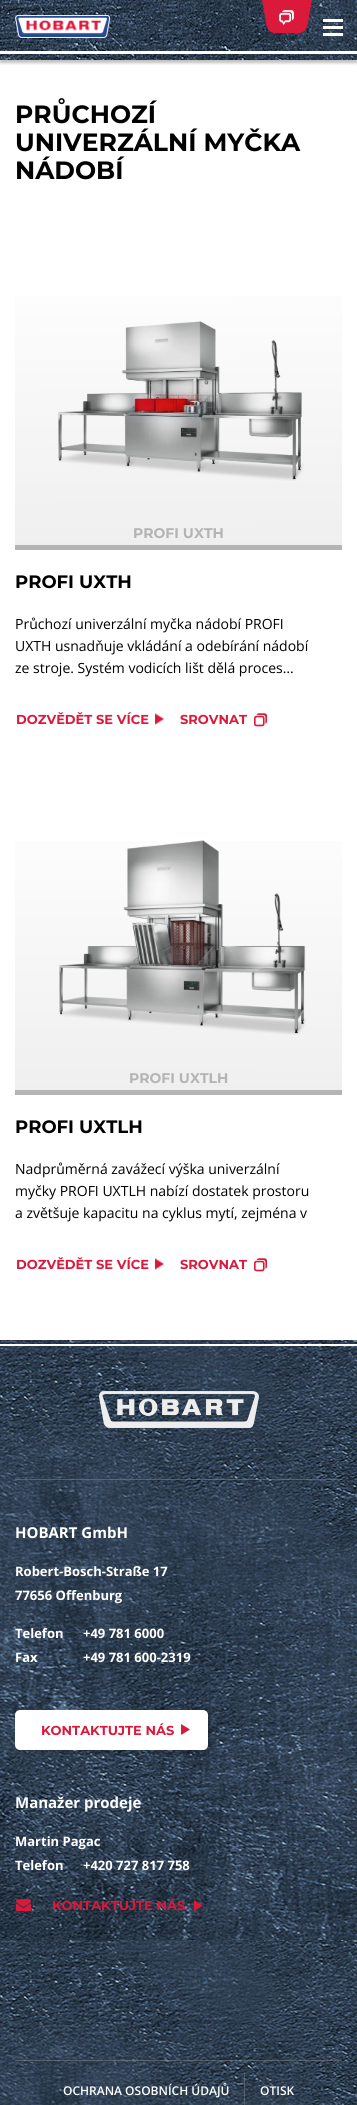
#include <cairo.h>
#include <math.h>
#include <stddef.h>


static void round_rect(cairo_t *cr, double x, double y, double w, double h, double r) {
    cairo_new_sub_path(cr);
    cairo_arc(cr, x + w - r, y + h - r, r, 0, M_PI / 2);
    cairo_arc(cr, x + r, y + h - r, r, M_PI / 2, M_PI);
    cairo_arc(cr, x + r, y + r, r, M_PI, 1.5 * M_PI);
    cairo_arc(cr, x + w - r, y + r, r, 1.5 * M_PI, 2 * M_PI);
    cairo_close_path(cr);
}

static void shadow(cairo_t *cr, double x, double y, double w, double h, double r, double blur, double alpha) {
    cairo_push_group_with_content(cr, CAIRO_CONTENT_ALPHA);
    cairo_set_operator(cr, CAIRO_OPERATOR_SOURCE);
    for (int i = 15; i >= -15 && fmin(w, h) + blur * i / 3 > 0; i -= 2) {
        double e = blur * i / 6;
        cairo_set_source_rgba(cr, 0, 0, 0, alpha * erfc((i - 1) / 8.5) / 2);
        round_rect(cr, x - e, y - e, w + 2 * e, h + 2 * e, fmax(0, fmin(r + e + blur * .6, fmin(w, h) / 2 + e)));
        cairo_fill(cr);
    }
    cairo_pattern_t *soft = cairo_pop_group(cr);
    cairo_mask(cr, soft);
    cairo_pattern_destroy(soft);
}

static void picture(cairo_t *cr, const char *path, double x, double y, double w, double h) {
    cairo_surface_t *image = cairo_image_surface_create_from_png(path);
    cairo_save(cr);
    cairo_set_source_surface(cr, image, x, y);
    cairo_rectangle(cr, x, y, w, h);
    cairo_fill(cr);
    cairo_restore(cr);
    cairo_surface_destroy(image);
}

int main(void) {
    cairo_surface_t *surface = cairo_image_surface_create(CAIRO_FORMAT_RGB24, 357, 2105);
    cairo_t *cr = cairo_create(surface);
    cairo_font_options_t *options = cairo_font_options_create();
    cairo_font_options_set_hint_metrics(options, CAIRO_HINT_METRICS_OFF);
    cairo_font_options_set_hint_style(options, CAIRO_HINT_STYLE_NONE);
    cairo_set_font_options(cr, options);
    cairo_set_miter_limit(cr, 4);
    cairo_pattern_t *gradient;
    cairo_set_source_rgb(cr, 1, 1, 1);
    cairo_paint(cr);
    cairo_set_source_rgb(cr, 0, 0, 0);
    shadow(cr, 0, 3, 357, 60, 0, 1.5, 0.25);
    picture(cr, "img1.png", 0, 0, 357, 60);
    picture(cr, "img2.png", 15, 15, 95, 23);
    cairo_set_source_rgb(cr, 0.855, 0.098, 0.231);
    cairo_new_path(cr);
    cairo_move_to(cr, 267, 0);
    cairo_line_to(cr, 307, 0);
    cairo_line_to(cr, 307, 25);
    cairo_curve_to(cr, 307, 29.5, 303.5, 33, 299, 33);
    cairo_line_to(cr, 275, 33);
    cairo_curve_to(cr, 270.5, 33, 267, 29.5, 267, 25);
    cairo_close_path(cr);
    cairo_fill(cr);
    cairo_new_path(cr);
    cairo_move_to(cr, 262, 0);
    cairo_line_to(cr, 267, 0);
    cairo_line_to(cr, 267, 28);
    cairo_close_path(cr);
    cairo_fill(cr);
    picture(cr, "img3.png", 279, 10, 15, 16);
    cairo_new_path(cr);
    cairo_move_to(cr, 307, 0);
    cairo_line_to(cr, 312, 0);
    cairo_line_to(cr, 307, 28);
    cairo_close_path(cr);
    cairo_fill(cr);
    cairo_set_source_rgb(cr, 1, 1, 1);
    cairo_rectangle(cr, 323, 19, 20, 3);
    cairo_fill(cr);
    cairo_rectangle(cr, 323, 26, 20, 3);
    cairo_fill(cr);
    cairo_rectangle(cr, 323, 33, 20, 3);
    cairo_fill(cr);
    cairo_rectangle(cr, 0, 51, 357, 3);
    cairo_fill(cr);
    cairo_select_font_face(cr, "Montserrat", CAIRO_FONT_SLANT_NORMAL, CAIRO_FONT_WEIGHT_BOLD);
    cairo_set_font_size(cr, 25);
    cairo_set_source_rgb(cr, 0, 0, 0);
    cairo_move_to(cr, 15, 123);
    cairo_show_text(cr, "PRŮCHOZÍ");
    cairo_move_to(cr, 15, 151);
    cairo_show_text(cr, "UNIVERZÁLNÍ MYČKA");
    cairo_move_to(cr, 15, 179);
    cairo_show_text(cr, "NÁDOBÍ");
    gradient = cairo_pattern_create_linear(178, 250, 179, 550);
    cairo_pattern_add_color_stop_rgba(gradient, 0, 1, 1, 1, 1);
    cairo_pattern_add_color_stop_rgba(gradient, 1, 0.937, 0.937, 0.937, 1);
    cairo_set_source(cr, gradient);
    cairo_pattern_destroy(gradient);
    cairo_rectangle(cr, 15, 296, 327, 249);
    cairo_fill(cr);
    picture(cr, "img4.png", 58, 321, 246, 160);
    cairo_set_font_size(cr, 14);
    cairo_set_source_rgb(cr, 0.706, 0.706, 0.706);
    cairo_move_to(cr, 133, 538);
    cairo_show_text(cr, "PROFI UXTH");
    cairo_rectangle(cr, 15, 545, 327, 5);
    cairo_fill(cr);
    cairo_set_font_size(cr, 18);
    cairo_set_source_rgb(cr, 0, 0, 0);
    cairo_move_to(cr, 15, 588);
    cairo_show_text(cr, "PROFI UXTH");
    cairo_select_font_face(cr, "Open Sans", CAIRO_FONT_SLANT_NORMAL, CAIRO_FONT_WEIGHT_NORMAL);
    cairo_set_font_size(cr, 14);
    cairo_move_to(cr, 15, 629);
    cairo_show_text(cr, "Průchozí univerzální myčka nádobí PROFI");
    cairo_move_to(cr, 15, 651);
    cairo_show_text(cr, "UXTH usnadňuje vkládání a odebírání nádobí");
    cairo_move_to(cr, 15, 673);
    cairo_show_text(cr, "ze stroje. Systém vodicích lišt dělá proces…");
    cairo_select_font_face(cr, "Montserrat", CAIRO_FONT_SLANT_NORMAL, CAIRO_FONT_WEIGHT_BOLD);
    cairo_set_font_size(cr, 13);
    cairo_set_source_rgb(cr, 0.855, 0.098, 0.231);
    cairo_move_to(cr, 16, 724);
    cairo_show_text(cr, "DOZVĚDĚT SE VÍCE");
    picture(cr, "img5.png", 155, 713, 9, 12);
    cairo_move_to(cr, 180, 724);
    cairo_show_text(cr, "SROVNAT");
    picture(cr, "img6.png", 254, 713, 13, 14);
    gradient = cairo_pattern_create_linear(178, 795, 179, 1095);
    cairo_pattern_add_color_stop_rgba(gradient, 0, 1, 1, 1, 1);
    cairo_pattern_add_color_stop_rgba(gradient, 1, 0.937, 0.937, 0.937, 1);
    cairo_set_source(cr, gradient);
    cairo_pattern_destroy(gradient);
    cairo_rectangle(cr, 15, 841, 327, 249);
    cairo_fill(cr);
    picture(cr, "img7.png", 59, 840, 247, 195);
    cairo_set_font_size(cr, 14);
    cairo_set_source_rgb(cr, 0.706, 0.706, 0.706);
    cairo_move_to(cr, 129, 1083);
    cairo_show_text(cr, "PROFI UXTLH");
    cairo_rectangle(cr, 15, 1090, 327, 5);
    cairo_fill(cr);
    cairo_set_font_size(cr, 18);
    cairo_set_source_rgb(cr, 0, 0, 0);
    cairo_move_to(cr, 15, 1133);
    cairo_show_text(cr, "PROFI UXTLH");
    cairo_select_font_face(cr, "Open Sans", CAIRO_FONT_SLANT_NORMAL, CAIRO_FONT_WEIGHT_NORMAL);
    cairo_set_font_size(cr, 14);
    cairo_move_to(cr, 15, 1174);
    cairo_show_text(cr, "Nadprůměrná zavážecí výška univerzální");
    cairo_move_to(cr, 15, 1196);
    cairo_show_text(cr, "myčky PROFI UXTLH nabízí dostatek prostoru");
    cairo_move_to(cr, 15, 1218);
    cairo_show_text(cr, "a zvětšuje kapacitu na cyklus mytí, zejména v");
    cairo_select_font_face(cr, "Montserrat", CAIRO_FONT_SLANT_NORMAL, CAIRO_FONT_WEIGHT_BOLD);
    cairo_set_font_size(cr, 13);
    cairo_set_source_rgb(cr, 0.855, 0.098, 0.231);
    cairo_move_to(cr, 16, 1269);
    cairo_show_text(cr, "DOZVĚDĚT SE VÍCE");
    picture(cr, "img5.png", 155, 1258, 9, 12);
    cairo_move_to(cr, 180, 1269);
    cairo_show_text(cr, "SROVNAT");
    picture(cr, "img6.png", 254, 1258, 13, 14);
    picture(cr, "img8.png", 0, 1340, 357, 765);
    cairo_set_source_rgb(cr, 1, 1, 1);
    cairo_rectangle(cr, 0, 1344, 357, 2);
    cairo_fill(cr);
    cairo_set_source_rgba(cr, 0.518, 0.533, 0.545, 0.5);
    cairo_rectangle(cr, 15, 1479, 327, 1);
    cairo_fill(cr);
    picture(cr, "img9.png", 99, 1391, 160, 37);
    cairo_select_font_face(cr, "Open Sans", CAIRO_FONT_SLANT_NORMAL, CAIRO_FONT_WEIGHT_BOLD);
    cairo_set_font_size(cr, 15);
    cairo_set_source_rgb(cr, 1, 1, 1);
    cairo_move_to(cr, 15, 1538);
    cairo_show_text(cr, "HOBART GmbH");
    cairo_set_font_size(cr, 13);
    cairo_move_to(cr, 15, 1576);
    cairo_show_text(cr, "Robert-Bosch-Straße 17");
    cairo_move_to(cr, 15, 1600);
    cairo_show_text(cr, "77656 Offenburg");
    cairo_move_to(cr, 15, 1638);
    cairo_show_text(cr, "Telefon");
    cairo_move_to(cr, 83, 1638);
    cairo_show_text(cr, "+49 781 6000");
    cairo_move_to(cr, 15, 1662);
    cairo_show_text(cr, "Fax");
    cairo_move_to(cr, 83, 1662);
    cairo_show_text(cr, "+49 781 600-2319");
    cairo_set_source_rgb(cr, 0, 0, 0);
    shadow(cr, 17, 1714, 193, 40, 5, 1.5, 0.17);
    cairo_set_source_rgb(cr, 1, 1, 1);
    round_rect(cr, 15, 1710, 193, 40, 5);
    cairo_fill(cr);
    cairo_select_font_face(cr, "Montserrat", CAIRO_FONT_SLANT_NORMAL, CAIRO_FONT_WEIGHT_BOLD);
    cairo_set_source_rgb(cr, 0.855, 0.098, 0.231);
    cairo_move_to(cr, 41, 1735);
    cairo_show_text(cr, "KONTAKTUJTE NÁS");
    picture(cr, "img10.png", 181, 1724, 9, 11);
    cairo_select_font_face(cr, "Open Sans", CAIRO_FONT_SLANT_NORMAL, CAIRO_FONT_WEIGHT_BOLD);
    cairo_set_font_size(cr, 15);
    cairo_set_source_rgb(cr, 1, 1, 1);
    cairo_move_to(cr, 15, 1808);
    cairo_show_text(cr, "Manažer prodeje");
    cairo_set_font_size(cr, 13);
    cairo_move_to(cr, 15, 1846);
    cairo_show_text(cr, "Martin Pagac");
    cairo_move_to(cr, 15, 1870);
    cairo_show_text(cr, "Telefon");
    cairo_move_to(cr, 83, 1870);
    cairo_show_text(cr, "+420 727 817 758");
    picture(cr, "img11.png", 16, 1899, 15, 13);
    cairo_select_font_face(cr, "Montserrat", CAIRO_FONT_SLANT_NORMAL, CAIRO_FONT_WEIGHT_BOLD);
    cairo_set_source_rgb(cr, 0.855, 0.098, 0.231);
    cairo_move_to(cr, 52, 1910);
    cairo_show_text(cr, "KONTAKTUJTE NÁS");
    picture(cr, "img12.png", 194, 1900, 9, 11);
    cairo_set_source_rgba(cr, 0.518, 0.533, 0.545, 0.5);
    cairo_rectangle(cr, 15, 2060, 327, 1);
    cairo_fill(cr);
    cairo_select_font_face(cr, "Open Sans SemiBold", CAIRO_FONT_SLANT_NORMAL, CAIRO_FONT_WEIGHT_NORMAL);
    cairo_set_font_size(cr, 12);
    cairo_set_source_rgb(cr, 1, 1, 1);
    cairo_move_to(cr, 63, 2095);
    cairo_show_text(cr, "OCHRANA OSOBNÍCH ÚDAJŮ");
    cairo_set_source_rgba(cr, 0.518, 0.533, 0.545, 0.5);
    cairo_rectangle(cr, 244, 2073, 1, 32);
    cairo_fill(cr);
    cairo_set_source_rgb(cr, 1, 1, 1);
    cairo_move_to(cr, 260, 2095);
    cairo_show_text(cr, "OTISK");
    cairo_surface_write_to_png(surface, "page.png");
    cairo_font_options_destroy(options);
    cairo_destroy(cr);
    cairo_surface_destroy(surface);
    return 0;
}
